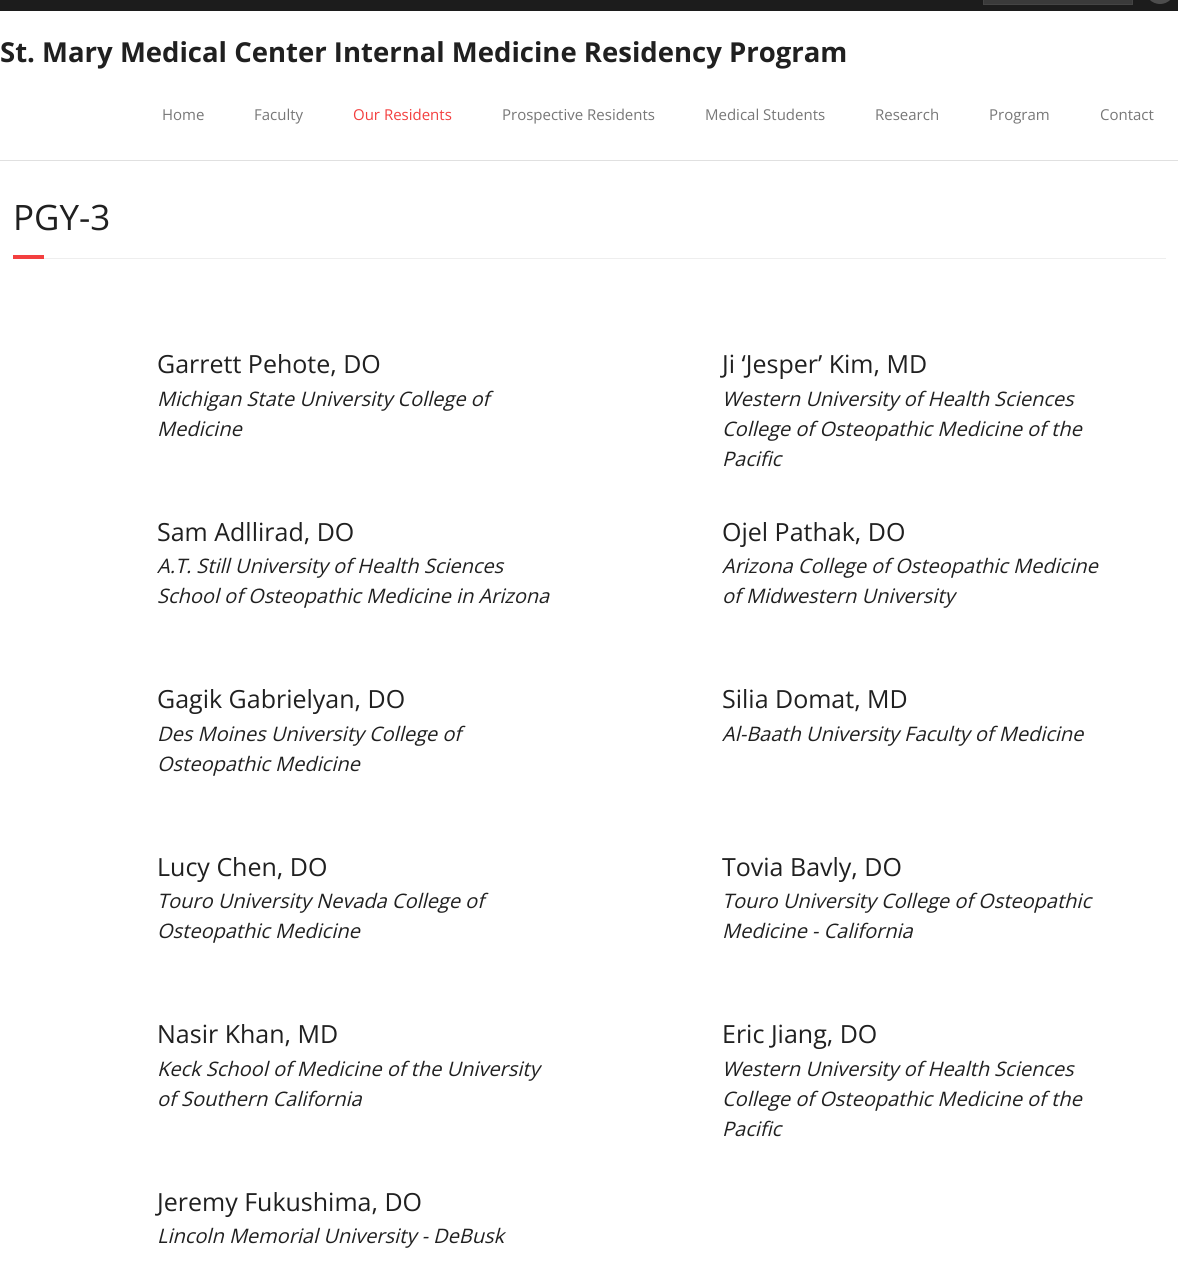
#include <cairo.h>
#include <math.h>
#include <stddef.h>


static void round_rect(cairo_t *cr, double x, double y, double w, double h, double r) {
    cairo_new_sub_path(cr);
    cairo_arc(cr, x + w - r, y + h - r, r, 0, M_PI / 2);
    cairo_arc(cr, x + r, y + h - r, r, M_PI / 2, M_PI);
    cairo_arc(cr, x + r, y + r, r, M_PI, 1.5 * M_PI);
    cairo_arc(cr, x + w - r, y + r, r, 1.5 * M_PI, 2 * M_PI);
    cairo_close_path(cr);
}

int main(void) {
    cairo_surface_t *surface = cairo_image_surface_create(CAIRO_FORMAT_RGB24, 1178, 1269);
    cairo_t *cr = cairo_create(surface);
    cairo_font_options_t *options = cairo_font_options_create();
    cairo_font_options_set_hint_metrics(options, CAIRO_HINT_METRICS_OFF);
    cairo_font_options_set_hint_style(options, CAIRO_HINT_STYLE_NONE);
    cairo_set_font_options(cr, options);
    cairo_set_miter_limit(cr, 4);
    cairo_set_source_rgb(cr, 1, 1, 1);
    cairo_paint(cr);
    cairo_set_source_rgb(cr, 0.11, 0.11, 0.11);
    cairo_rectangle(cr, 0, 0, 1178, 11);
    cairo_fill(cr);
    cairo_set_source_rgb(cr, 0.227, 0.227, 0.227);
    cairo_rectangle(cr, 983.5, -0.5, 149, 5);
    cairo_fill_preserve(cr);
    cairo_set_source_rgb(cr, 0.267, 0.267, 0.267);
    cairo_set_line_width(cr, 1);
    cairo_stroke(cr);
    cairo_set_source_rgb(cr, 0.302, 0.302, 0.302);
    round_rect(cr, 1145, -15, 30, 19, 15);
    cairo_fill(cr);
    cairo_set_source_rgb(cr, 0.878, 0.878, 0.878);
    cairo_rectangle(cr, 0, 160, 1178, 1);
    cairo_fill(cr);
    cairo_select_font_face(cr, "Open Sans", CAIRO_FONT_SLANT_NORMAL, CAIRO_FONT_WEIGHT_BOLD);
    cairo_set_font_size(cr, 27.5);
    cairo_set_source_rgb(cr, 0.125, 0.125, 0.125);
    cairo_move_to(cr, 0, 62);
    cairo_show_text(cr, "St. Mary Medical Center Internal Medicine Residency Program");
    cairo_select_font_face(cr, "Open Sans", CAIRO_FONT_SLANT_NORMAL, CAIRO_FONT_WEIGHT_NORMAL);
    cairo_set_font_size(cr, 15);
    cairo_set_source_rgb(cr, 0.467, 0.467, 0.467);
    cairo_move_to(cr, 162, 120);
    cairo_show_text(cr, "Home");
    cairo_move_to(cr, 254, 120);
    cairo_show_text(cr, "Faculty");
    cairo_set_source_rgb(cr, 0.953, 0.247, 0.247);
    cairo_move_to(cr, 353, 120);
    cairo_show_text(cr, "Our Residents");
    cairo_set_source_rgb(cr, 0.467, 0.467, 0.467);
    cairo_move_to(cr, 502, 120);
    cairo_show_text(cr, "Prospective Residents");
    cairo_move_to(cr, 705, 120);
    cairo_show_text(cr, "Medical Students");
    cairo_move_to(cr, 875, 120);
    cairo_show_text(cr, "Research");
    cairo_move_to(cr, 989, 120);
    cairo_show_text(cr, "Program");
    cairo_move_to(cr, 1100, 120);
    cairo_show_text(cr, "Contact");
    cairo_set_font_size(cr, 35);
    cairo_set_source_rgb(cr, 0.125, 0.125, 0.125);
    cairo_move_to(cr, 13, 230);
    cairo_show_text(cr, "PGY-3");
    cairo_set_source_rgb(cr, 0.953, 0.247, 0.247);
    cairo_rectangle(cr, 13, 255, 31, 4);
    cairo_fill(cr);
    cairo_set_source_rgb(cr, 0.933, 0.933, 0.933);
    cairo_rectangle(cr, 44, 258, 1122, 1);
    cairo_fill(cr);
    cairo_set_font_size(cr, 25);
    cairo_set_source_rgb(cr, 0.125, 0.125, 0.125);
    cairo_move_to(cr, 157, 373);
    cairo_show_text(cr, "Garrett Pehote, DO");
    cairo_select_font_face(cr, "Open Sans", CAIRO_FONT_SLANT_ITALIC, CAIRO_FONT_WEIGHT_NORMAL);
    cairo_set_font_size(cr, 20);
    cairo_move_to(cr, 157, 406);
    cairo_show_text(cr, "Michigan State University College of");
    cairo_move_to(cr, 157, 436);
    cairo_show_text(cr, "Medicine");
    cairo_select_font_face(cr, "Open Sans", CAIRO_FONT_SLANT_NORMAL, CAIRO_FONT_WEIGHT_NORMAL);
    cairo_set_font_size(cr, 25);
    cairo_move_to(cr, 722, 373);
    cairo_show_text(cr, "Ji ‘Jesper’ Kim, MD");
    cairo_select_font_face(cr, "Open Sans", CAIRO_FONT_SLANT_ITALIC, CAIRO_FONT_WEIGHT_NORMAL);
    cairo_set_font_size(cr, 20);
    cairo_move_to(cr, 722, 406);
    cairo_show_text(cr, "Western University of Health Sciences");
    cairo_move_to(cr, 722, 436);
    cairo_show_text(cr, "College of Osteopathic Medicine of the");
    cairo_move_to(cr, 722, 466);
    cairo_show_text(cr, "Pacific");
    cairo_select_font_face(cr, "Open Sans", CAIRO_FONT_SLANT_NORMAL, CAIRO_FONT_WEIGHT_NORMAL);
    cairo_set_font_size(cr, 25);
    cairo_move_to(cr, 157, 541);
    cairo_show_text(cr, "Sam Adllirad, DO");
    cairo_select_font_face(cr, "Open Sans", CAIRO_FONT_SLANT_ITALIC, CAIRO_FONT_WEIGHT_NORMAL);
    cairo_set_font_size(cr, 20);
    cairo_move_to(cr, 157, 573);
    cairo_show_text(cr, "A.T. Still University of Health Sciences");
    cairo_move_to(cr, 157, 603);
    cairo_show_text(cr, "School of Osteopathic Medicine in Arizona");
    cairo_select_font_face(cr, "Open Sans", CAIRO_FONT_SLANT_NORMAL, CAIRO_FONT_WEIGHT_NORMAL);
    cairo_set_font_size(cr, 25);
    cairo_move_to(cr, 722, 541);
    cairo_show_text(cr, "Ojel Pathak, DO");
    cairo_select_font_face(cr, "Open Sans", CAIRO_FONT_SLANT_ITALIC, CAIRO_FONT_WEIGHT_NORMAL);
    cairo_set_font_size(cr, 20);
    cairo_move_to(cr, 722, 573);
    cairo_show_text(cr, "Arizona College of Osteopathic Medicine");
    cairo_move_to(cr, 722, 603);
    cairo_show_text(cr, "of Midwestern University");
    cairo_select_font_face(cr, "Open Sans", CAIRO_FONT_SLANT_NORMAL, CAIRO_FONT_WEIGHT_NORMAL);
    cairo_set_font_size(cr, 25);
    cairo_move_to(cr, 157, 708);
    cairo_show_text(cr, "Gagik Gabrielyan, DO");
    cairo_select_font_face(cr, "Open Sans", CAIRO_FONT_SLANT_ITALIC, CAIRO_FONT_WEIGHT_NORMAL);
    cairo_set_font_size(cr, 20);
    cairo_move_to(cr, 157, 741);
    cairo_show_text(cr, "Des Moines University College of");
    cairo_move_to(cr, 157, 771);
    cairo_show_text(cr, "Osteopathic Medicine");
    cairo_select_font_face(cr, "Open Sans", CAIRO_FONT_SLANT_NORMAL, CAIRO_FONT_WEIGHT_NORMAL);
    cairo_set_font_size(cr, 25);
    cairo_move_to(cr, 722, 708);
    cairo_show_text(cr, "Silia Domat, MD");
    cairo_select_font_face(cr, "Open Sans", CAIRO_FONT_SLANT_ITALIC, CAIRO_FONT_WEIGHT_NORMAL);
    cairo_set_font_size(cr, 20);
    cairo_move_to(cr, 722, 741);
    cairo_show_text(cr, "Al-Baath University Faculty of Medicine");
    cairo_select_font_face(cr, "Open Sans", CAIRO_FONT_SLANT_NORMAL, CAIRO_FONT_WEIGHT_NORMAL);
    cairo_set_font_size(cr, 25);
    cairo_move_to(cr, 157, 876);
    cairo_show_text(cr, "Lucy Chen, DO");
    cairo_select_font_face(cr, "Open Sans", CAIRO_FONT_SLANT_ITALIC, CAIRO_FONT_WEIGHT_NORMAL);
    cairo_set_font_size(cr, 20);
    cairo_move_to(cr, 157, 908);
    cairo_show_text(cr, "Touro University Nevada College of");
    cairo_move_to(cr, 157, 938);
    cairo_show_text(cr, "Osteopathic Medicine");
    cairo_select_font_face(cr, "Open Sans", CAIRO_FONT_SLANT_NORMAL, CAIRO_FONT_WEIGHT_NORMAL);
    cairo_set_font_size(cr, 25);
    cairo_move_to(cr, 722, 876);
    cairo_show_text(cr, "Tovia Bavly, DO");
    cairo_select_font_face(cr, "Open Sans", CAIRO_FONT_SLANT_ITALIC, CAIRO_FONT_WEIGHT_NORMAL);
    cairo_set_font_size(cr, 20);
    cairo_move_to(cr, 722, 908);
    cairo_show_text(cr, "Touro University College of Osteopathic");
    cairo_move_to(cr, 722, 938);
    cairo_show_text(cr, "Medicine - California");
    cairo_select_font_face(cr, "Open Sans", CAIRO_FONT_SLANT_NORMAL, CAIRO_FONT_WEIGHT_NORMAL);
    cairo_set_font_size(cr, 25);
    cairo_move_to(cr, 157, 1043);
    cairo_show_text(cr, "Nasir Khan, MD");
    cairo_select_font_face(cr, "Open Sans", CAIRO_FONT_SLANT_ITALIC, CAIRO_FONT_WEIGHT_NORMAL);
    cairo_set_font_size(cr, 20);
    cairo_move_to(cr, 157, 1076);
    cairo_show_text(cr, "Keck School of Medicine of the University");
    cairo_move_to(cr, 157, 1106);
    cairo_show_text(cr, "of Southern California");
    cairo_select_font_face(cr, "Open Sans", CAIRO_FONT_SLANT_NORMAL, CAIRO_FONT_WEIGHT_NORMAL);
    cairo_set_font_size(cr, 25);
    cairo_move_to(cr, 722, 1043);
    cairo_show_text(cr, "Eric Jiang, DO");
    cairo_select_font_face(cr, "Open Sans", CAIRO_FONT_SLANT_ITALIC, CAIRO_FONT_WEIGHT_NORMAL);
    cairo_set_font_size(cr, 20);
    cairo_move_to(cr, 722, 1076);
    cairo_show_text(cr, "Western University of Health Sciences");
    cairo_move_to(cr, 722, 1106);
    cairo_show_text(cr, "College of Osteopathic Medicine of the");
    cairo_move_to(cr, 722, 1136);
    cairo_show_text(cr, "Pacific");
    cairo_select_font_face(cr, "Open Sans", CAIRO_FONT_SLANT_NORMAL, CAIRO_FONT_WEIGHT_NORMAL);
    cairo_set_font_size(cr, 25);
    cairo_move_to(cr, 157, 1211);
    cairo_show_text(cr, "Jeremy Fukushima, DO");
    cairo_select_font_face(cr, "Open Sans", CAIRO_FONT_SLANT_ITALIC, CAIRO_FONT_WEIGHT_NORMAL);
    cairo_set_font_size(cr, 20);
    cairo_move_to(cr, 157, 1243);
    cairo_show_text(cr, "Lincoln Memorial University - DeBusk");
    cairo_surface_write_to_png(surface, "page.png");
    cairo_font_options_destroy(options);
    cairo_destroy(cr);
    cairo_surface_destroy(surface);
    return 0;
}
